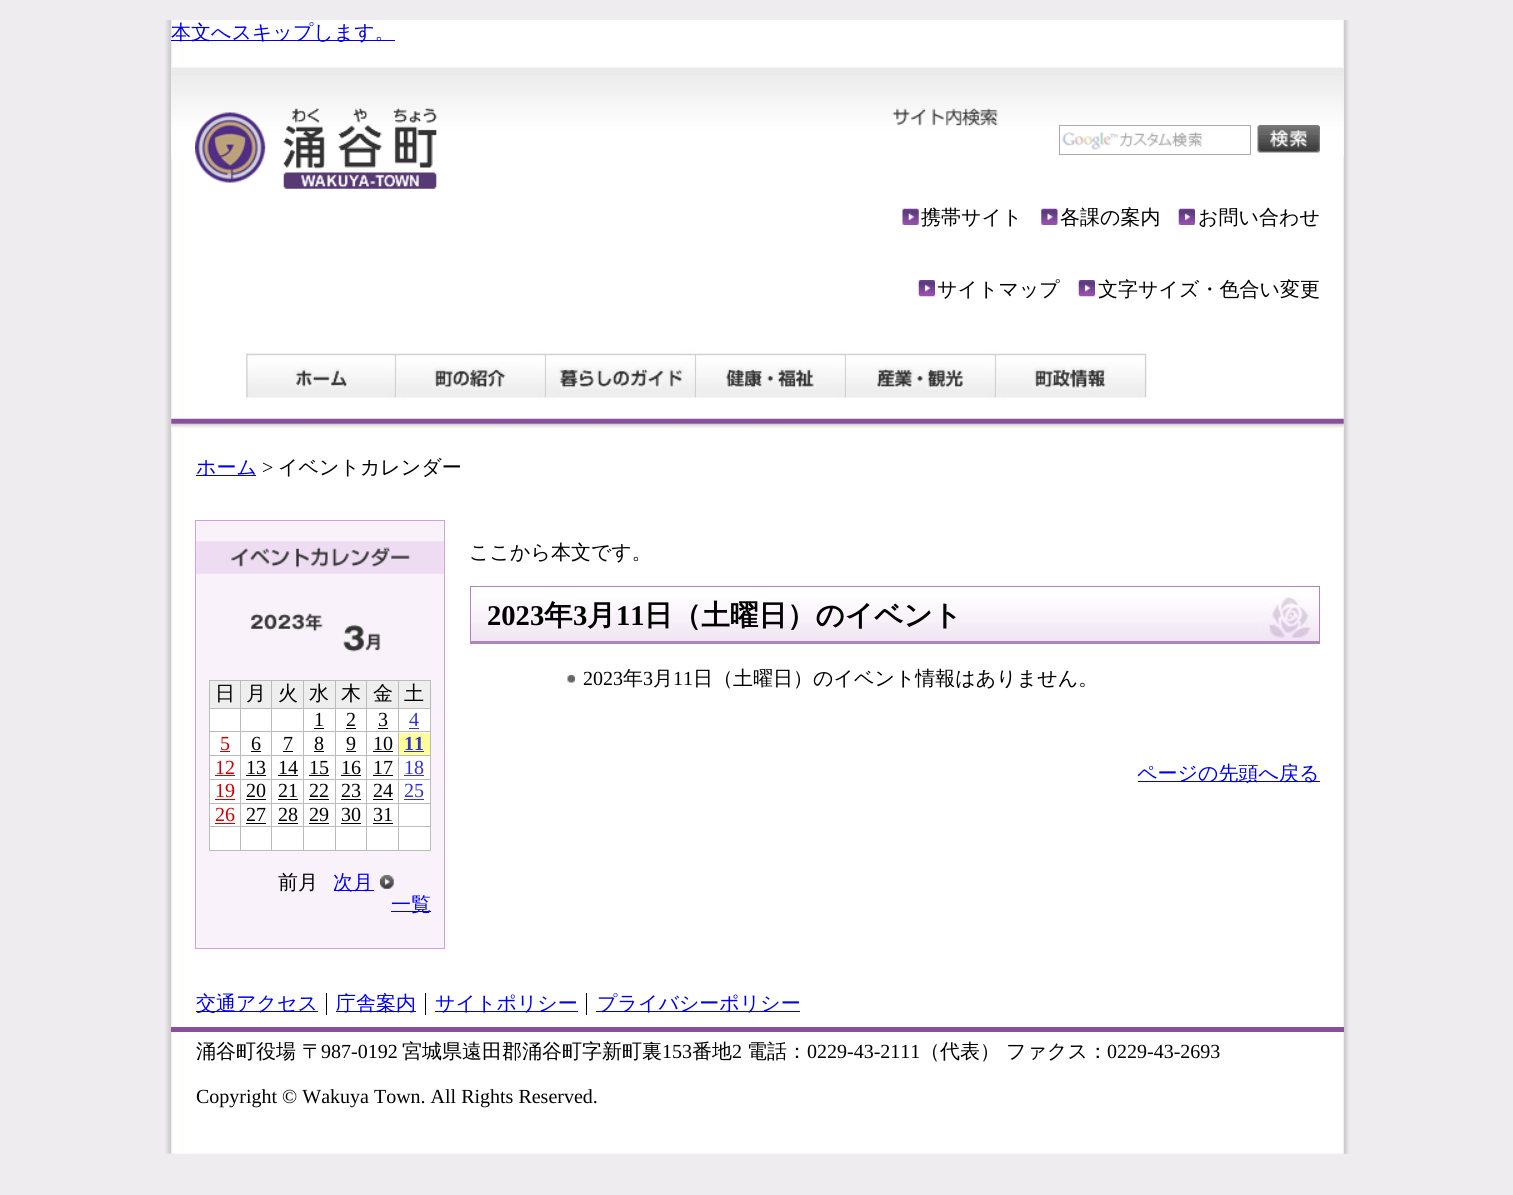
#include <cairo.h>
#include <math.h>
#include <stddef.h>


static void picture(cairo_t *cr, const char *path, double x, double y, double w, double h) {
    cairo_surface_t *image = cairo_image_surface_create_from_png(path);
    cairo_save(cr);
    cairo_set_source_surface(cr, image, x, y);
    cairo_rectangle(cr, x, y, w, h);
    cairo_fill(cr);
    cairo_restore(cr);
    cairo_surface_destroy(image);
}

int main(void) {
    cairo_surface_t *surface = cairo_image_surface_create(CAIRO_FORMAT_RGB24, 1513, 1195);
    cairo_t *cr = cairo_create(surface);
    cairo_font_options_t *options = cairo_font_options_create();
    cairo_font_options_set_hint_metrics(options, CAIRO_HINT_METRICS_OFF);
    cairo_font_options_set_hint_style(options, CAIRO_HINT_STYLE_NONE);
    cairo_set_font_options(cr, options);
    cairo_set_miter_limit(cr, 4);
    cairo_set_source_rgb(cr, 0.933, 0.922, 0.937);
    cairo_paint(cr);
    picture(cr, "img1.png", 165, 20, 1185, 1134);
    cairo_set_source_rgb(cr, 0, 0, 0.933);
    cairo_rectangle(cr, 171, 40, 224, 1);
    cairo_fill(cr);
    cairo_select_font_face(cr, "WenQuanYi Zen Hei Medium", CAIRO_FONT_SLANT_NORMAL, CAIRO_FONT_WEIGHT_NORMAL);
    cairo_set_font_size(cr, 20);
    cairo_move_to(cr, 171, 39);
    cairo_show_text(cr, "本文へスキップします。");
    picture(cr, "img2.png", 171, 66, 1173, 90);
    picture(cr, "img3.png", 195, 108, 242, 81);
    picture(cr, "img4.png", 892, 108, 106, 19);
    picture(cr, "img5.png", 1062, 132, 141, 18);
    cairo_rectangle(cr, 1059.5, 125.5, 191, 29);
    cairo_set_source_rgb(cr, 0.667, 0.667, 0.667);
    cairo_set_line_width(cr, 1);
    cairo_stroke(cr);
    picture(cr, "img6.png", 1257, 125, 63, 28);
    picture(cr, "img7.png", 902, 208, 17, 17);
    cairo_set_source_rgb(cr, 0, 0, 0);
    cairo_move_to(cr, 921, 224);
    cairo_show_text(cr, "携帯サイト");
    picture(cr, "img8.png", 1041, 208, 17, 17);
    cairo_move_to(cr, 1060, 224);
    cairo_show_text(cr, "各課の案内");
    picture(cr, "img9.png", 1178, 208, 17, 17);
    cairo_move_to(cr, 1198, 224);
    cairo_show_text(cr, "お問い合わせ");
    picture(cr, "img10.png", 918, 280, 17, 17);
    cairo_move_to(cr, 937, 296);
    cairo_show_text(cr, "サイトマップ");
    picture(cr, "img10.png", 1078, 280, 17, 17);
    cairo_move_to(cr, 1098, 296);
    cairo_show_text(cr, "文字サイズ・色合い変更");
    picture(cr, "img11.png", 171, 418, 1173, 11);
    picture(cr, "img12.png", 246, 352, 151, 47);
    picture(cr, "img13.png", 396, 349, 151, 50);
    picture(cr, "img14.png", 546, 349, 151, 50);
    picture(cr, "img15.png", 696, 349, 151, 50);
    picture(cr, "img16.png", 846, 349, 151, 50);
    picture(cr, "img17.png", 996, 349, 151, 50);
    cairo_set_source_rgb(cr, 0, 0, 0.933);
    cairo_rectangle(cr, 196, 475, 60, 1);
    cairo_fill(cr);
    cairo_move_to(cr, 196, 474);
    cairo_show_text(cr, "ホーム");
    cairo_select_font_face(cr, "Liberation Serif", CAIRO_FONT_SLANT_NORMAL, CAIRO_FONT_WEIGHT_NORMAL);
    cairo_set_source_rgb(cr, 0, 0, 0);
    cairo_move_to(cr, 262, 474);
    cairo_show_text(cr, ">");
    cairo_select_font_face(cr, "WenQuanYi Zen Hei Medium", CAIRO_FONT_SLANT_NORMAL, CAIRO_FONT_WEIGHT_NORMAL);
    cairo_move_to(cr, 278, 474);
    cairo_show_text(cr, "イベントカレンダー");
    cairo_set_source_rgb(cr, 0.976, 0.949, 0.984);
    cairo_rectangle(cr, 195.5, 520.5, 249, 428);
    cairo_fill_preserve(cr);
    cairo_set_source_rgb(cr, 0.824, 0.616, 0.882);
    cairo_stroke(cr);
    picture(cr, "img18.png", 196, 541, 248, 33);
    picture(cr, "img19.png", 250, 613, 73, 19);
    picture(cr, "img20.png", 343, 624, 38, 28);
    cairo_set_source_rgb(cr, 1, 1, 1);
    cairo_rectangle(cr, 210, 709, 220, 141);
    cairo_fill(cr);
    cairo_set_source_rgb(cr, 0.733, 0.733, 0.733);
    cairo_rectangle(cr, 209, 680, 222, 1);
    cairo_fill(cr);
    cairo_rectangle(cr, 430, 680, 1, 171);
    cairo_fill(cr);
    cairo_rectangle(cr, 209, 850, 222, 1);
    cairo_fill(cr);
    cairo_rectangle(cr, 209, 680, 1, 171);
    cairo_fill(cr);
    cairo_set_source_rgb(cr, 0.933, 0.933, 0.933);
    cairo_rectangle(cr, 210, 681, 30, 27);
    cairo_fill(cr);
    cairo_set_source_rgb(cr, 0, 0, 0);
    cairo_move_to(cr, 215, 700);
    cairo_show_text(cr, "日");
    cairo_set_source_rgb(cr, 0.933, 0.933, 0.933);
    cairo_rectangle(cr, 241, 681, 62, 27);
    cairo_fill(cr);
    cairo_set_source_rgb(cr, 0.733, 0.733, 0.733);
    cairo_rectangle(cr, 398, 708, 33, 1);
    cairo_fill(cr);
    cairo_rectangle(cr, 398, 731, 33, 1);
    cairo_fill(cr);
    cairo_rectangle(cr, 398, 755, 33, 1);
    cairo_fill(cr);
    cairo_rectangle(cr, 398, 779, 33, 1);
    cairo_fill(cr);
    cairo_rectangle(cr, 398, 803, 33, 1);
    cairo_fill(cr);
    cairo_rectangle(cr, 398, 826, 33, 1);
    cairo_fill(cr);
    cairo_rectangle(cr, 398, 826, 1, 25);
    cairo_fill(cr);
    cairo_rectangle(cr, 366, 826, 33, 1);
    cairo_fill(cr);
    cairo_rectangle(cr, 398, 803, 1, 25);
    cairo_fill(cr);
    cairo_rectangle(cr, 366, 803, 33, 1);
    cairo_fill(cr);
    cairo_rectangle(cr, 398, 779, 1, 25);
    cairo_fill(cr);
    cairo_rectangle(cr, 366, 779, 33, 1);
    cairo_fill(cr);
    cairo_rectangle(cr, 398, 755, 1, 25);
    cairo_fill(cr);
    cairo_rectangle(cr, 366, 755, 33, 1);
    cairo_fill(cr);
    cairo_rectangle(cr, 398, 731, 1, 25);
    cairo_fill(cr);
    cairo_rectangle(cr, 366, 731, 33, 1);
    cairo_fill(cr);
    cairo_rectangle(cr, 398, 708, 1, 25);
    cairo_fill(cr);
    cairo_rectangle(cr, 366, 708, 33, 1);
    cairo_fill(cr);
    cairo_rectangle(cr, 366, 826, 1, 25);
    cairo_fill(cr);
    cairo_rectangle(cr, 335, 826, 33, 1);
    cairo_fill(cr);
    cairo_rectangle(cr, 366, 803, 1, 25);
    cairo_fill(cr);
    cairo_rectangle(cr, 335, 803, 33, 1);
    cairo_fill(cr);
    cairo_rectangle(cr, 366, 779, 1, 25);
    cairo_fill(cr);
    cairo_rectangle(cr, 335, 779, 33, 1);
    cairo_fill(cr);
    cairo_rectangle(cr, 366, 755, 1, 25);
    cairo_fill(cr);
    cairo_rectangle(cr, 335, 755, 33, 1);
    cairo_fill(cr);
    cairo_rectangle(cr, 366, 731, 1, 25);
    cairo_fill(cr);
    cairo_rectangle(cr, 335, 731, 33, 1);
    cairo_fill(cr);
    cairo_rectangle(cr, 366, 708, 1, 25);
    cairo_fill(cr);
    cairo_rectangle(cr, 335, 708, 33, 1);
    cairo_fill(cr);
    cairo_rectangle(cr, 335, 826, 1, 25);
    cairo_fill(cr);
    cairo_rectangle(cr, 303, 826, 33, 1);
    cairo_fill(cr);
    cairo_rectangle(cr, 335, 803, 1, 25);
    cairo_fill(cr);
    cairo_rectangle(cr, 303, 803, 33, 1);
    cairo_fill(cr);
    cairo_rectangle(cr, 335, 779, 1, 25);
    cairo_fill(cr);
    cairo_rectangle(cr, 303, 779, 33, 1);
    cairo_fill(cr);
    cairo_rectangle(cr, 335, 755, 1, 25);
    cairo_fill(cr);
    cairo_rectangle(cr, 303, 755, 33, 1);
    cairo_fill(cr);
    cairo_rectangle(cr, 335, 731, 1, 25);
    cairo_fill(cr);
    cairo_rectangle(cr, 303, 731, 33, 1);
    cairo_fill(cr);
    cairo_rectangle(cr, 335, 708, 1, 25);
    cairo_fill(cr);
    cairo_rectangle(cr, 303, 708, 33, 1);
    cairo_fill(cr);
    cairo_rectangle(cr, 303, 826, 1, 25);
    cairo_fill(cr);
    cairo_rectangle(cr, 271, 826, 33, 1);
    cairo_fill(cr);
    cairo_rectangle(cr, 303, 803, 1, 25);
    cairo_fill(cr);
    cairo_rectangle(cr, 271, 803, 33, 1);
    cairo_fill(cr);
    cairo_rectangle(cr, 303, 779, 1, 25);
    cairo_fill(cr);
    cairo_rectangle(cr, 271, 779, 33, 1);
    cairo_fill(cr);
    cairo_rectangle(cr, 303, 755, 1, 25);
    cairo_fill(cr);
    cairo_rectangle(cr, 271, 755, 33, 1);
    cairo_fill(cr);
    cairo_rectangle(cr, 303, 731, 1, 25);
    cairo_fill(cr);
    cairo_rectangle(cr, 271, 731, 33, 1);
    cairo_fill(cr);
    cairo_rectangle(cr, 303, 708, 1, 25);
    cairo_fill(cr);
    cairo_rectangle(cr, 271, 708, 33, 1);
    cairo_fill(cr);
    cairo_rectangle(cr, 271, 826, 1, 25);
    cairo_fill(cr);
    cairo_rectangle(cr, 240, 826, 33, 1);
    cairo_fill(cr);
    cairo_rectangle(cr, 271, 803, 1, 25);
    cairo_fill(cr);
    cairo_rectangle(cr, 240, 803, 33, 1);
    cairo_fill(cr);
    cairo_rectangle(cr, 271, 779, 1, 25);
    cairo_fill(cr);
    cairo_rectangle(cr, 240, 779, 33, 1);
    cairo_fill(cr);
    cairo_rectangle(cr, 271, 755, 1, 25);
    cairo_fill(cr);
    cairo_rectangle(cr, 240, 755, 33, 1);
    cairo_fill(cr);
    cairo_rectangle(cr, 271, 731, 1, 25);
    cairo_fill(cr);
    cairo_rectangle(cr, 240, 731, 33, 1);
    cairo_fill(cr);
    cairo_rectangle(cr, 271, 708, 1, 25);
    cairo_fill(cr);
    cairo_rectangle(cr, 240, 708, 33, 1);
    cairo_fill(cr);
    cairo_rectangle(cr, 240, 826, 1, 25);
    cairo_fill(cr);
    cairo_rectangle(cr, 209, 826, 32, 1);
    cairo_fill(cr);
    cairo_rectangle(cr, 240, 803, 1, 25);
    cairo_fill(cr);
    cairo_rectangle(cr, 209, 803, 32, 1);
    cairo_fill(cr);
    cairo_rectangle(cr, 240, 779, 1, 25);
    cairo_fill(cr);
    cairo_rectangle(cr, 209, 779, 32, 1);
    cairo_fill(cr);
    cairo_rectangle(cr, 240, 755, 1, 25);
    cairo_fill(cr);
    cairo_rectangle(cr, 209, 755, 32, 1);
    cairo_fill(cr);
    cairo_rectangle(cr, 240, 731, 1, 25);
    cairo_fill(cr);
    cairo_rectangle(cr, 209, 731, 32, 1);
    cairo_fill(cr);
    cairo_rectangle(cr, 240, 708, 1, 25);
    cairo_fill(cr);
    cairo_rectangle(cr, 209, 708, 32, 1);
    cairo_fill(cr);
    cairo_rectangle(cr, 240, 680, 1, 29);
    cairo_fill(cr);
    cairo_set_source_rgb(cr, 0, 0, 0);
    cairo_move_to(cr, 246, 700);
    cairo_show_text(cr, "月");
    cairo_set_source_rgb(cr, 0.733, 0.733, 0.733);
    cairo_rectangle(cr, 271, 680, 1, 29);
    cairo_fill(cr);
    cairo_set_source_rgb(cr, 0, 0, 0);
    cairo_move_to(cr, 278, 700);
    cairo_show_text(cr, "火");
    cairo_set_source_rgb(cr, 0.933, 0.933, 0.933);
    cairo_rectangle(cr, 304, 681, 31, 27);
    cairo_fill(cr);
    cairo_set_source_rgb(cr, 0.733, 0.733, 0.733);
    cairo_rectangle(cr, 303, 680, 1, 29);
    cairo_fill(cr);
    cairo_set_source_rgb(cr, 0, 0, 0);
    cairo_move_to(cr, 309, 700);
    cairo_show_text(cr, "水");
    cairo_set_source_rgb(cr, 0.933, 0.933, 0.933);
    cairo_rectangle(cr, 336, 681, 30, 27);
    cairo_fill(cr);
    cairo_set_source_rgb(cr, 0.733, 0.733, 0.733);
    cairo_rectangle(cr, 335, 680, 1, 29);
    cairo_fill(cr);
    cairo_set_source_rgb(cr, 0, 0, 0);
    cairo_move_to(cr, 341, 700);
    cairo_show_text(cr, "木");
    cairo_set_source_rgb(cr, 0.933, 0.933, 0.933);
    cairo_rectangle(cr, 367, 681, 31, 27);
    cairo_fill(cr);
    cairo_set_source_rgb(cr, 0.733, 0.733, 0.733);
    cairo_rectangle(cr, 366, 680, 1, 29);
    cairo_fill(cr);
    cairo_set_source_rgb(cr, 0, 0, 0);
    cairo_move_to(cr, 373, 700);
    cairo_show_text(cr, "金");
    cairo_set_source_rgb(cr, 0.933, 0.933, 0.933);
    cairo_rectangle(cr, 399, 681, 31, 27);
    cairo_fill(cr);
    cairo_set_source_rgb(cr, 0.733, 0.733, 0.733);
    cairo_rectangle(cr, 398, 680, 1, 29);
    cairo_fill(cr);
    cairo_set_source_rgb(cr, 0, 0, 0);
    cairo_move_to(cr, 404, 700);
    cairo_show_text(cr, "土");
    cairo_select_font_face(cr, "Liberation Serif", CAIRO_FONT_SLANT_NORMAL, CAIRO_FONT_WEIGHT_NORMAL);
    cairo_move_to(cr, 314, 726);
    cairo_show_text(cr, "1");
    cairo_rectangle(cr, 314, 728, 10, 1);
    cairo_fill(cr);
    cairo_move_to(cr, 346, 726);
    cairo_show_text(cr, "2");
    cairo_rectangle(cr, 346, 728, 10, 1);
    cairo_fill(cr);
    cairo_move_to(cr, 378, 726);
    cairo_show_text(cr, "3");
    cairo_rectangle(cr, 378, 728, 10, 1);
    cairo_fill(cr);
    cairo_set_source_rgb(cr, 0.2, 0.2, 0.8);
    cairo_move_to(cr, 409, 726);
    cairo_show_text(cr, "4");
    cairo_rectangle(cr, 409, 728, 10, 1);
    cairo_fill(cr);
    cairo_set_source_rgb(cr, 0.8, 0, 0);
    cairo_move_to(cr, 220, 750);
    cairo_show_text(cr, "5");
    cairo_rectangle(cr, 220, 751, 10, 1);
    cairo_fill(cr);
    cairo_set_source_rgb(cr, 0, 0, 0);
    cairo_move_to(cr, 251, 750);
    cairo_show_text(cr, "6");
    cairo_rectangle(cr, 251, 751, 10, 1);
    cairo_fill(cr);
    cairo_move_to(cr, 283, 750);
    cairo_show_text(cr, "7");
    cairo_rectangle(cr, 283, 751, 10, 1);
    cairo_fill(cr);
    cairo_move_to(cr, 314, 750);
    cairo_show_text(cr, "8");
    cairo_rectangle(cr, 314, 751, 10, 1);
    cairo_fill(cr);
    cairo_move_to(cr, 346, 750);
    cairo_show_text(cr, "9");
    cairo_rectangle(cr, 346, 751, 10, 1);
    cairo_fill(cr);
    cairo_move_to(cr, 373, 750);
    cairo_show_text(cr, "10");
    cairo_rectangle(cr, 373, 751, 20, 1);
    cairo_fill(cr);
    cairo_set_source_rgb(cr, 1, 1, 0.6);
    cairo_rectangle(cr, 399, 733, 31, 22);
    cairo_fill(cr);
    cairo_select_font_face(cr, "Liberation Serif", CAIRO_FONT_SLANT_NORMAL, CAIRO_FONT_WEIGHT_BOLD);
    cairo_set_source_rgb(cr, 0.2, 0.2, 0.8);
    cairo_move_to(cr, 404, 750);
    cairo_show_text(cr, "11");
    cairo_rectangle(cr, 404, 751, 20, 1);
    cairo_fill(cr);
    cairo_select_font_face(cr, "Liberation Serif", CAIRO_FONT_SLANT_NORMAL, CAIRO_FONT_WEIGHT_NORMAL);
    cairo_set_source_rgb(cr, 0.8, 0, 0);
    cairo_move_to(cr, 215, 774);
    cairo_show_text(cr, "12");
    cairo_rectangle(cr, 215, 775, 20, 1);
    cairo_fill(cr);
    cairo_set_source_rgb(cr, 0, 0, 0);
    cairo_move_to(cr, 246, 774);
    cairo_show_text(cr, "13");
    cairo_rectangle(cr, 246, 775, 20, 1);
    cairo_fill(cr);
    cairo_move_to(cr, 278, 774);
    cairo_show_text(cr, "14");
    cairo_rectangle(cr, 278, 775, 20, 1);
    cairo_fill(cr);
    cairo_move_to(cr, 309, 774);
    cairo_show_text(cr, "15");
    cairo_rectangle(cr, 309, 775, 20, 1);
    cairo_fill(cr);
    cairo_move_to(cr, 341, 774);
    cairo_show_text(cr, "16");
    cairo_rectangle(cr, 341, 775, 20, 1);
    cairo_fill(cr);
    cairo_move_to(cr, 373, 774);
    cairo_show_text(cr, "17");
    cairo_rectangle(cr, 373, 775, 20, 1);
    cairo_fill(cr);
    cairo_set_source_rgb(cr, 0.2, 0.2, 0.8);
    cairo_move_to(cr, 404, 774);
    cairo_show_text(cr, "18");
    cairo_rectangle(cr, 404, 775, 20, 1);
    cairo_fill(cr);
    cairo_set_source_rgb(cr, 0.8, 0, 0);
    cairo_move_to(cr, 215, 797);
    cairo_show_text(cr, "19");
    cairo_rectangle(cr, 215, 799, 20, 1);
    cairo_fill(cr);
    cairo_set_source_rgb(cr, 0, 0, 0);
    cairo_move_to(cr, 246, 797);
    cairo_show_text(cr, "20");
    cairo_rectangle(cr, 246, 799, 20, 1);
    cairo_fill(cr);
    cairo_move_to(cr, 278, 797);
    cairo_show_text(cr, "21");
    cairo_rectangle(cr, 278, 799, 20, 1);
    cairo_fill(cr);
    cairo_move_to(cr, 309, 797);
    cairo_show_text(cr, "22");
    cairo_rectangle(cr, 309, 799, 20, 1);
    cairo_fill(cr);
    cairo_move_to(cr, 341, 797);
    cairo_show_text(cr, "23");
    cairo_rectangle(cr, 341, 799, 20, 1);
    cairo_fill(cr);
    cairo_move_to(cr, 373, 797);
    cairo_show_text(cr, "24");
    cairo_rectangle(cr, 373, 799, 20, 1);
    cairo_fill(cr);
    cairo_set_source_rgb(cr, 0.2, 0.2, 0.8);
    cairo_move_to(cr, 404, 797);
    cairo_show_text(cr, "25");
    cairo_rectangle(cr, 404, 799, 20, 1);
    cairo_fill(cr);
    cairo_set_source_rgb(cr, 0.8, 0, 0);
    cairo_move_to(cr, 215, 821);
    cairo_show_text(cr, "26");
    cairo_rectangle(cr, 215, 823, 20, 1);
    cairo_fill(cr);
    cairo_set_source_rgb(cr, 0, 0, 0);
    cairo_move_to(cr, 246, 821);
    cairo_show_text(cr, "27");
    cairo_rectangle(cr, 246, 823, 20, 1);
    cairo_fill(cr);
    cairo_move_to(cr, 278, 821);
    cairo_show_text(cr, "28");
    cairo_rectangle(cr, 278, 823, 20, 1);
    cairo_fill(cr);
    cairo_move_to(cr, 309, 821);
    cairo_show_text(cr, "29");
    cairo_rectangle(cr, 309, 823, 20, 1);
    cairo_fill(cr);
    cairo_move_to(cr, 341, 821);
    cairo_show_text(cr, "30");
    cairo_rectangle(cr, 341, 823, 20, 1);
    cairo_fill(cr);
    cairo_move_to(cr, 373, 821);
    cairo_show_text(cr, "31");
    cairo_rectangle(cr, 373, 823, 20, 1);
    cairo_fill(cr);
    cairo_select_font_face(cr, "WenQuanYi Zen Hei Medium", CAIRO_FONT_SLANT_NORMAL, CAIRO_FONT_WEIGHT_NORMAL);
    cairo_move_to(cr, 278, 889);
    cairo_show_text(cr, "前月");
    picture(cr, "img21.png", 380, 875, 14, 14);
    cairo_set_source_rgb(cr, 0, 0, 0.933);
    cairo_rectangle(cr, 334, 890, 40, 1);
    cairo_fill(cr);
    cairo_move_to(cr, 333, 889);
    cairo_show_text(cr, "次月");
    cairo_rectangle(cr, 391, 911, 40, 1);
    cairo_fill(cr);
    cairo_move_to(cr, 391, 911);
    cairo_show_text(cr, "一覧");
    cairo_set_source_rgb(cr, 0, 0, 0);
    cairo_move_to(cr, 469, 559);
    cairo_show_text(cr, "ここから本文です。");
    picture(cr, "img22.png", 471, 588, 848, 53);
    cairo_set_source_rgb(cr, 0.675, 0.525, 0.725);
    cairo_rectangle(cr, 470, 586, 850, 1);
    cairo_fill(cr);
    cairo_rectangle(cr, 1319, 586, 1, 58);
    cairo_fill(cr);
    cairo_rectangle(cr, 470, 641, 850, 3);
    cairo_fill(cr);
    cairo_rectangle(cr, 470, 586, 1, 58);
    cairo_fill(cr);
    cairo_select_font_face(cr, "Liberation Serif", CAIRO_FONT_SLANT_NORMAL, CAIRO_FONT_WEIGHT_BOLD);
    cairo_set_font_size(cr, 28.6);
    cairo_set_source_rgb(cr, 0, 0, 0);
    cairo_move_to(cr, 487, 625);
    cairo_show_text(cr, "2023");
    cairo_select_font_face(cr, "WenQuanYi Zen Hei", CAIRO_FONT_SLANT_NORMAL, CAIRO_FONT_WEIGHT_BOLD);
    cairo_move_to(cr, 544, 625);
    cairo_show_text(cr, "年");
    cairo_select_font_face(cr, "Liberation Serif", CAIRO_FONT_SLANT_NORMAL, CAIRO_FONT_WEIGHT_BOLD);
    cairo_move_to(cr, 573, 625);
    cairo_show_text(cr, "3");
    cairo_select_font_face(cr, "WenQuanYi Zen Hei", CAIRO_FONT_SLANT_NORMAL, CAIRO_FONT_WEIGHT_BOLD);
    cairo_move_to(cr, 587, 625);
    cairo_show_text(cr, "月");
    cairo_select_font_face(cr, "Liberation Serif", CAIRO_FONT_SLANT_NORMAL, CAIRO_FONT_WEIGHT_BOLD);
    cairo_move_to(cr, 616, 625);
    cairo_show_text(cr, "11");
    cairo_select_font_face(cr, "WenQuanYi Zen Hei", CAIRO_FONT_SLANT_NORMAL, CAIRO_FONT_WEIGHT_BOLD);
    cairo_move_to(cr, 644, 625);
    cairo_show_text(cr, "日（土曜日）のイベント");
    picture(cr, "img23.png", 567, 674, 8, 9);
    cairo_select_font_face(cr, "Liberation Serif", CAIRO_FONT_SLANT_NORMAL, CAIRO_FONT_WEIGHT_NORMAL);
    cairo_set_font_size(cr, 20);
    cairo_move_to(cr, 583, 685);
    cairo_show_text(cr, "2023");
    cairo_select_font_face(cr, "WenQuanYi Zen Hei Medium", CAIRO_FONT_SLANT_NORMAL, CAIRO_FONT_WEIGHT_NORMAL);
    cairo_move_to(cr, 623, 685);
    cairo_show_text(cr, "年");
    cairo_select_font_face(cr, "Liberation Serif", CAIRO_FONT_SLANT_NORMAL, CAIRO_FONT_WEIGHT_NORMAL);
    cairo_move_to(cr, 643, 685);
    cairo_show_text(cr, "3");
    cairo_select_font_face(cr, "WenQuanYi Zen Hei Medium", CAIRO_FONT_SLANT_NORMAL, CAIRO_FONT_WEIGHT_NORMAL);
    cairo_move_to(cr, 653, 685);
    cairo_show_text(cr, "月");
    cairo_select_font_face(cr, "Liberation Serif", CAIRO_FONT_SLANT_NORMAL, CAIRO_FONT_WEIGHT_NORMAL);
    cairo_move_to(cr, 673, 685);
    cairo_show_text(cr, "11");
    cairo_select_font_face(cr, "WenQuanYi Zen Hei Medium", CAIRO_FONT_SLANT_NORMAL, CAIRO_FONT_WEIGHT_NORMAL);
    cairo_move_to(cr, 693, 685);
    cairo_show_text(cr, "日（土曜日）のイベント情報はありません。");
    cairo_set_source_rgb(cr, 0, 0, 0.933);
    cairo_rectangle(cr, 1138, 781, 182, 1);
    cairo_fill(cr);
    cairo_move_to(cr, 1137, 780);
    cairo_show_text(cr, "ページの先頭へ戻る");
    cairo_set_source_rgb(cr, 0, 0, 0);
    cairo_rectangle(cr, 326, 993, 1, 22);
    cairo_fill(cr);
    cairo_set_source_rgb(cr, 0, 0, 0.933);
    cairo_rectangle(cr, 196, 1011, 122, 1);
    cairo_fill(cr);
    cairo_move_to(cr, 196, 1010);
    cairo_show_text(cr, "交通アクセス");
    cairo_set_source_rgb(cr, 0, 0, 0);
    cairo_rectangle(cr, 425, 993, 1, 22);
    cairo_fill(cr);
    cairo_set_source_rgb(cr, 0, 0, 0.933);
    cairo_rectangle(cr, 336, 1011, 80, 1);
    cairo_fill(cr);
    cairo_move_to(cr, 336, 1010);
    cairo_show_text(cr, "庁舎案内");
    cairo_set_source_rgb(cr, 0, 0, 0);
    cairo_rectangle(cr, 586, 993, 1, 22);
    cairo_fill(cr);
    cairo_set_source_rgb(cr, 0, 0, 0.933);
    cairo_rectangle(cr, 435, 1011, 143, 1);
    cairo_fill(cr);
    cairo_move_to(cr, 435, 1010);
    cairo_show_text(cr, "サイトポリシー");
    cairo_rectangle(cr, 596, 1011, 204, 1);
    cairo_fill(cr);
    cairo_move_to(cr, 597, 1010);
    cairo_show_text(cr, "プライバシーポリシー");
    cairo_set_source_rgb(cr, 0.537, 0.31, 0.612);
    cairo_rectangle(cr, 171, 1027, 1173, 5);
    cairo_fill(cr);
    cairo_set_source_rgb(cr, 0, 0, 0);
    cairo_move_to(cr, 196, 1058);
    cairo_show_text(cr, "涌谷町役場 〒");
    cairo_select_font_face(cr, "Liberation Serif", CAIRO_FONT_SLANT_NORMAL, CAIRO_FONT_WEIGHT_NORMAL);
    cairo_move_to(cr, 321, 1058);
    cairo_show_text(cr, "987-0192");
    cairo_select_font_face(cr, "WenQuanYi Zen Hei Medium", CAIRO_FONT_SLANT_NORMAL, CAIRO_FONT_WEIGHT_NORMAL);
    cairo_move_to(cr, 402, 1058);
    cairo_show_text(cr, "宮城県遠田郡涌谷町字新町裏");
    cairo_select_font_face(cr, "Liberation Serif", CAIRO_FONT_SLANT_NORMAL, CAIRO_FONT_WEIGHT_NORMAL);
    cairo_move_to(cr, 662, 1058);
    cairo_show_text(cr, "153");
    cairo_select_font_face(cr, "WenQuanYi Zen Hei Medium", CAIRO_FONT_SLANT_NORMAL, CAIRO_FONT_WEIGHT_NORMAL);
    cairo_move_to(cr, 692, 1058);
    cairo_show_text(cr, "番地");
    cairo_select_font_face(cr, "Liberation Serif", CAIRO_FONT_SLANT_NORMAL, CAIRO_FONT_WEIGHT_NORMAL);
    cairo_move_to(cr, 732, 1058);
    cairo_show_text(cr, "2");
    cairo_select_font_face(cr, "WenQuanYi Zen Hei Medium", CAIRO_FONT_SLANT_NORMAL, CAIRO_FONT_WEIGHT_NORMAL);
    cairo_move_to(cr, 747, 1058);
    cairo_show_text(cr, "電話：");
    cairo_select_font_face(cr, "Liberation Serif", CAIRO_FONT_SLANT_NORMAL, CAIRO_FONT_WEIGHT_NORMAL);
    cairo_move_to(cr, 807, 1058);
    cairo_show_text(cr, "0229-43-2111");
    cairo_select_font_face(cr, "WenQuanYi Zen Hei Medium", CAIRO_FONT_SLANT_NORMAL, CAIRO_FONT_WEIGHT_NORMAL);
    cairo_move_to(cr, 920, 1058);
    cairo_show_text(cr, "（代表） ファクス：");
    cairo_select_font_face(cr, "Liberation Serif", CAIRO_FONT_SLANT_NORMAL, CAIRO_FONT_WEIGHT_NORMAL);
    cairo_move_to(cr, 1107, 1058);
    cairo_show_text(cr, "0229-43-2693");
    cairo_move_to(cr, 196, 1103);
    cairo_show_text(cr, "Copyright © Wakuya Town. All Rights Reserved.");
    cairo_surface_write_to_png(surface, "page.png");
    cairo_font_options_destroy(options);
    cairo_destroy(cr);
    cairo_surface_destroy(surface);
    return 0;
}
